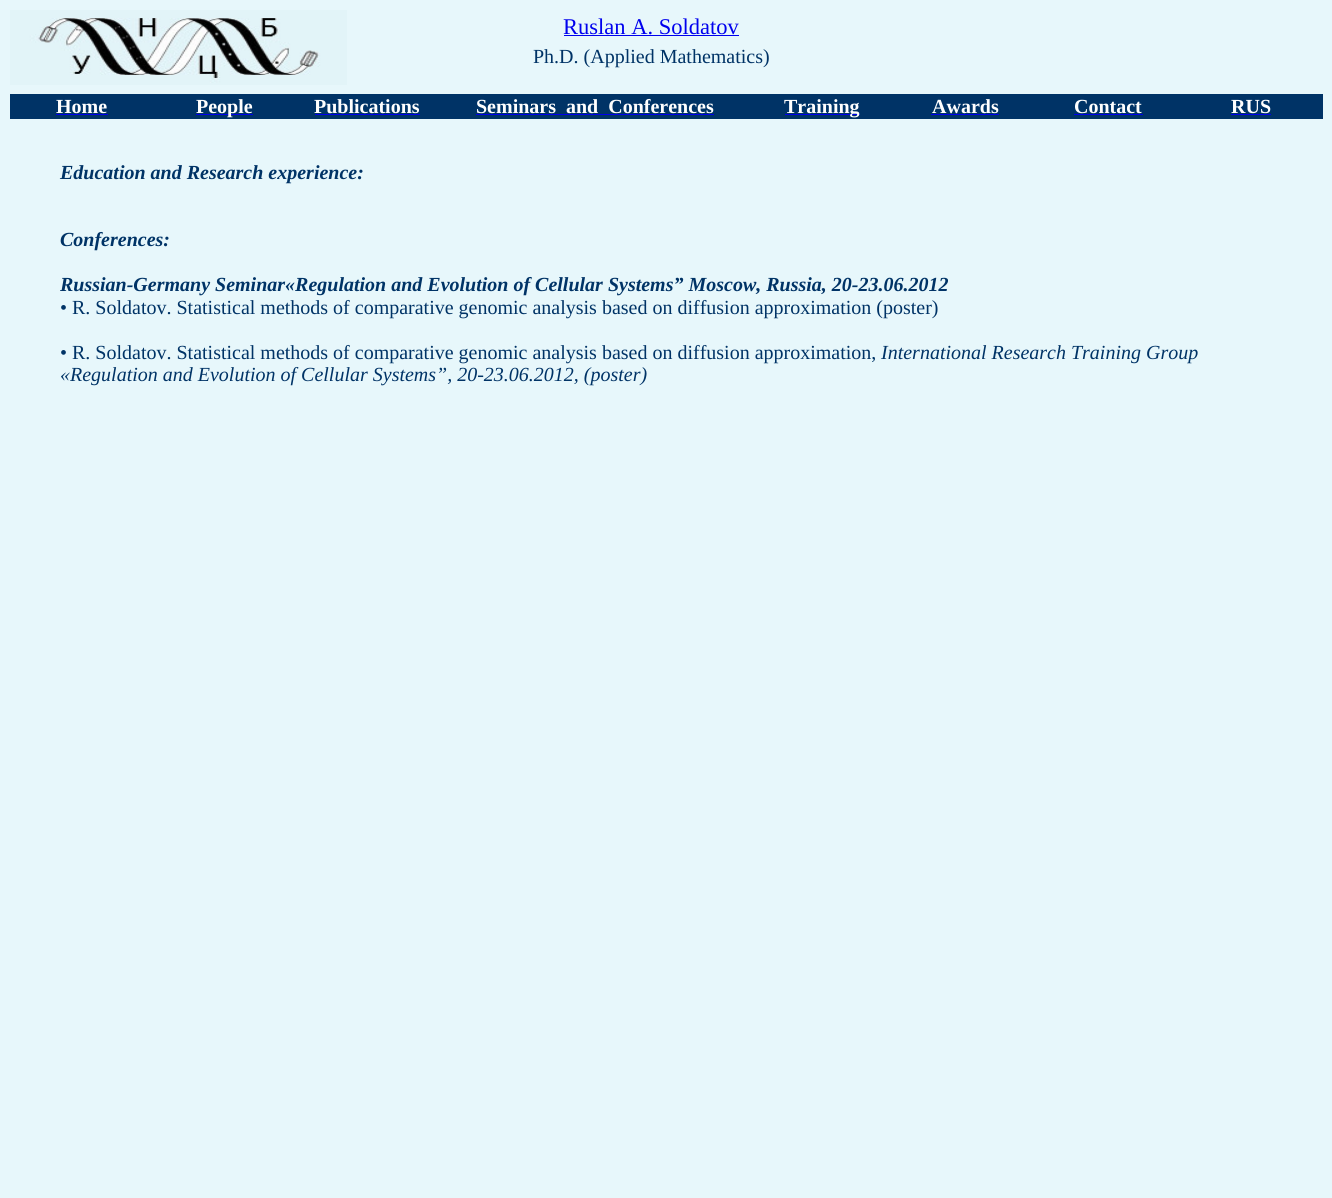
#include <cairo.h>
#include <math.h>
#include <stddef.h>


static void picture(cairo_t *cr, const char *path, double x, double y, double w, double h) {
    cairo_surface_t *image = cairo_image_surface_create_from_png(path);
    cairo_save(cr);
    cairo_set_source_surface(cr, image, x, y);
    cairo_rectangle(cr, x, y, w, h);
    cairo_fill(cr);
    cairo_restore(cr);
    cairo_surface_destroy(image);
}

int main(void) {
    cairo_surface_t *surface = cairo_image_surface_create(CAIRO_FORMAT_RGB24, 1332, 1198);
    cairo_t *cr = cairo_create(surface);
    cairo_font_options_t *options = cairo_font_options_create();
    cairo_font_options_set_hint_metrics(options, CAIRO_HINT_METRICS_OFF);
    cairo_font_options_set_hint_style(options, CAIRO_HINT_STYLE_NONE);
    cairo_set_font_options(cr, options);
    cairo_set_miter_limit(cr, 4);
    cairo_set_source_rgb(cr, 0.906, 0.965, 0.984);
    cairo_paint(cr);
    picture(cr, "img1.png", 10, 10, 337, 75);
    cairo_select_font_face(cr, "Liberation Serif", CAIRO_FONT_SLANT_NORMAL, CAIRO_FONT_WEIGHT_NORMAL);
    cairo_set_font_size(cr, 22.5);
    cairo_set_source_rgb(cr, 0, 0, 0.933);
    cairo_move_to(cr, 563, 34);
    cairo_show_text(cr, "Ruslan A. Soldatov");
    cairo_rectangle(cr, 564, 35, 175, 1);
    cairo_fill(cr);
    cairo_set_font_size(cr, 20);
    cairo_set_source_rgb(cr, 0, 0.2, 0.4);
    cairo_move_to(cr, 533, 63);
    cairo_show_text(cr, "Ph.D. (Applied Mathematics)");
    cairo_rectangle(cr, 10, 94, 1313, 25);
    cairo_fill(cr);
    cairo_select_font_face(cr, "Liberation Serif", CAIRO_FONT_SLANT_NORMAL, CAIRO_FONT_WEIGHT_BOLD);
    cairo_set_source_rgb(cr, 1, 1, 1);
    cairo_move_to(cr, 56, 113);
    cairo_show_text(cr, "Home");
    cairo_set_source_rgb(cr, 0, 0, 0.933);
    cairo_rectangle(cr, 56, 114, 52, 1);
    cairo_fill(cr);
    cairo_rectangle(cr, 196, 114, 57, 1);
    cairo_fill(cr);
    cairo_set_source_rgb(cr, 1, 1, 1);
    cairo_move_to(cr, 196, 113);
    cairo_show_text(cr, "People");
    cairo_move_to(cr, 314, 113);
    cairo_show_text(cr, "Publications");
    cairo_set_source_rgb(cr, 0, 0, 0.933);
    cairo_rectangle(cr, 315, 114, 105, 1);
    cairo_fill(cr);
    cairo_set_source_rgb(cr, 1, 1, 1);
    cairo_move_to(cr, 476, 113);
    cairo_show_text(cr, "Seminars  and  Conferences");
    cairo_set_source_rgb(cr, 0, 0, 0.933);
    cairo_rectangle(cr, 476, 114, 238, 1);
    cairo_fill(cr);
    cairo_rectangle(cr, 785, 114, 75, 1);
    cairo_fill(cr);
    cairo_set_source_rgb(cr, 1, 1, 1);
    cairo_move_to(cr, 784, 113);
    cairo_show_text(cr, "Training");
    cairo_move_to(cr, 932, 113);
    cairo_show_text(cr, "Awards");
    cairo_set_source_rgb(cr, 0, 0, 0.933);
    cairo_rectangle(cr, 931, 114, 68, 1);
    cairo_fill(cr);
    cairo_set_source_rgb(cr, 1, 1, 1);
    cairo_move_to(cr, 1074, 113);
    cairo_show_text(cr, "Contact");
    cairo_set_source_rgb(cr, 0, 0, 0.933);
    cairo_rectangle(cr, 1074, 114, 69, 1);
    cairo_fill(cr);
    cairo_set_source_rgb(cr, 1, 1, 1);
    cairo_move_to(cr, 1231, 113);
    cairo_show_text(cr, "RUS");
    cairo_set_source_rgb(cr, 0, 0, 0.933);
    cairo_rectangle(cr, 1231, 114, 40, 1);
    cairo_fill(cr);
    cairo_select_font_face(cr, "Liberation Serif", CAIRO_FONT_SLANT_ITALIC, CAIRO_FONT_WEIGHT_BOLD);
    cairo_set_source_rgb(cr, 0, 0.2, 0.4);
    cairo_move_to(cr, 60, 179);
    cairo_show_text(cr, "Education and Research experience:");
    cairo_move_to(cr, 60, 246);
    cairo_show_text(cr, "Conferences:");
    cairo_move_to(cr, 60, 291);
    cairo_show_text(cr, "Russian-Germany Seminar«Regulation and Evolution of Cellular Systems” Moscow, Russia, 20-23.06.2012");
    cairo_select_font_face(cr, "Liberation Serif", CAIRO_FONT_SLANT_NORMAL, CAIRO_FONT_WEIGHT_NORMAL);
    cairo_move_to(cr, 60, 314);
    cairo_show_text(cr, "• R. Soldatov. Statistical methods of comparative genomic analysis based on diffusion approximation (poster)");
    cairo_move_to(cr, 60, 359);
    cairo_show_text(cr, "• R. Soldatov. Statistical methods of comparative genomic analysis based on diffusion approximation,");
    cairo_select_font_face(cr, "Liberation Serif", CAIRO_FONT_SLANT_ITALIC, CAIRO_FONT_WEIGHT_NORMAL);
    cairo_move_to(cr, 881, 359);
    cairo_show_text(cr, "International Research Training Group");
    cairo_move_to(cr, 60, 381);
    cairo_show_text(cr, "«Regulation and Evolution of Cellular Systems”, 20-23.06.2012, (poster)");
    cairo_surface_write_to_png(surface, "page.png");
    cairo_font_options_destroy(options);
    cairo_destroy(cr);
    cairo_surface_destroy(surface);
    return 0;
}
